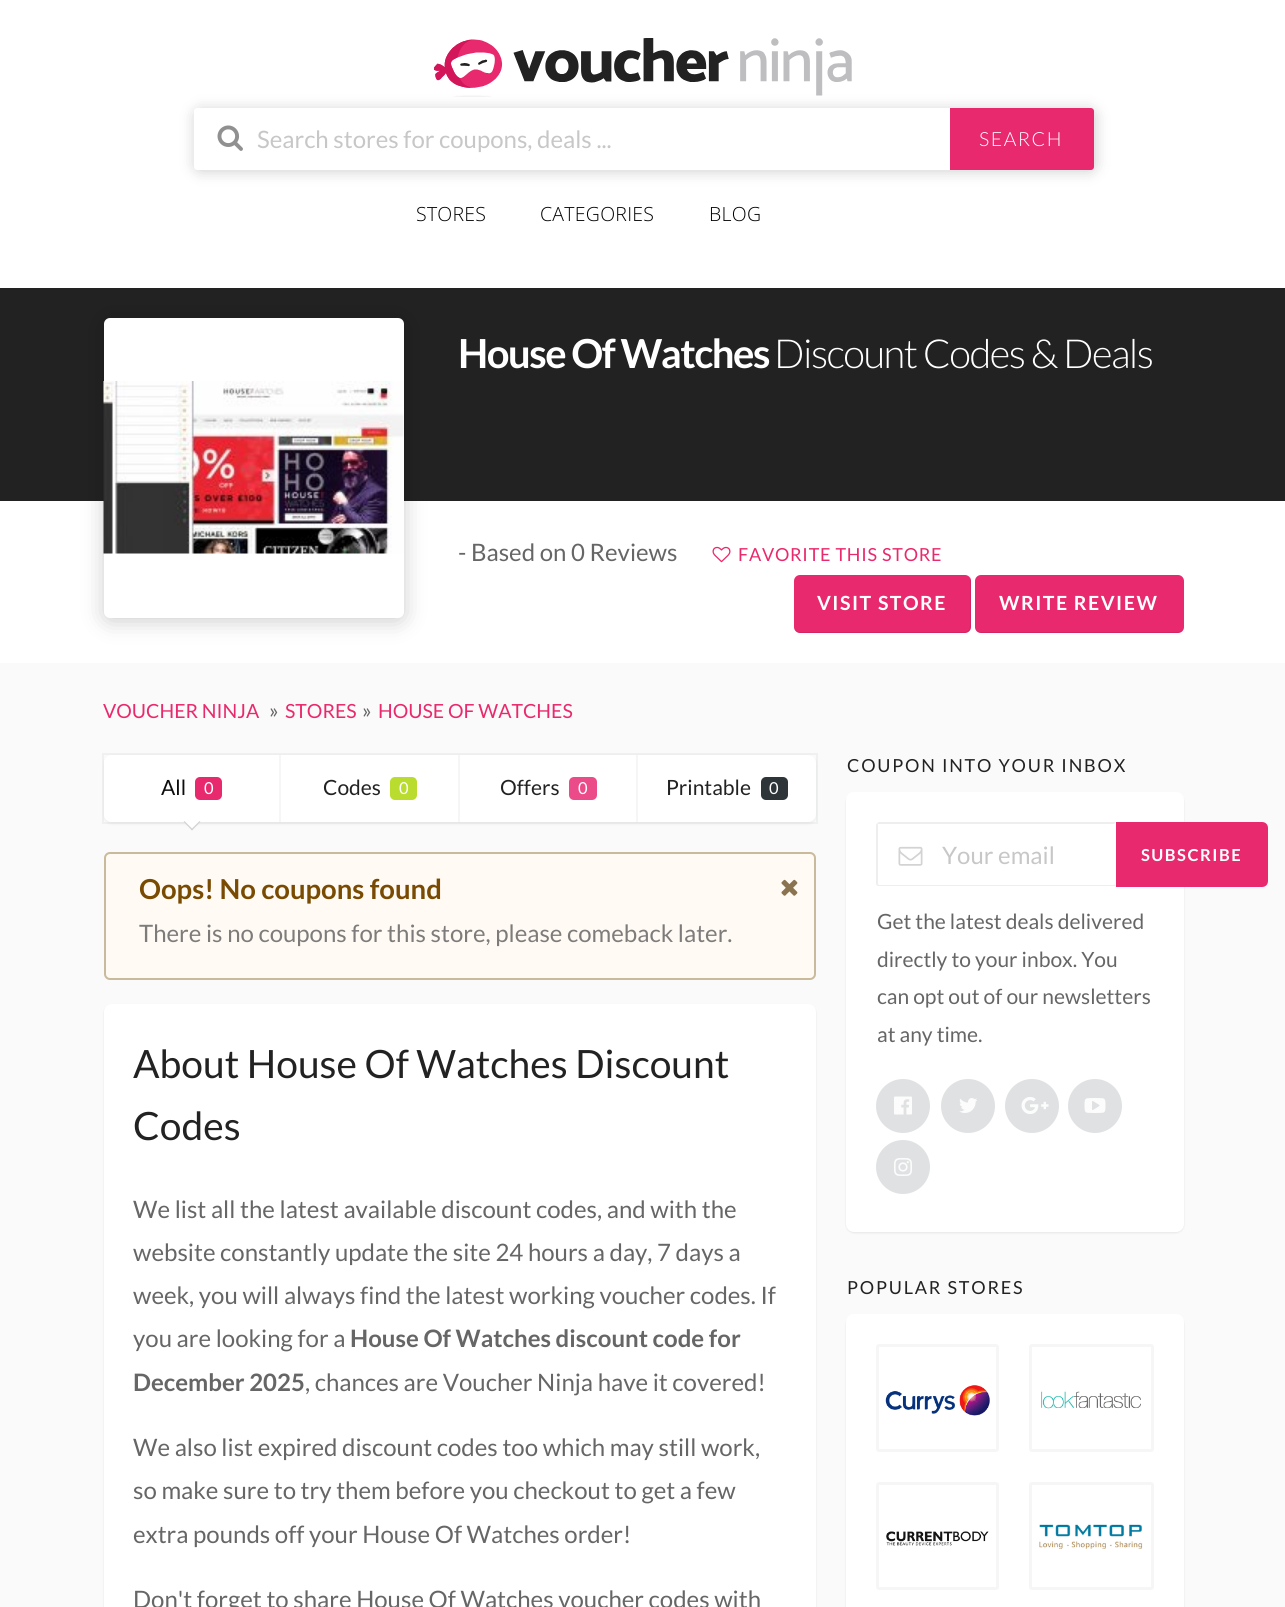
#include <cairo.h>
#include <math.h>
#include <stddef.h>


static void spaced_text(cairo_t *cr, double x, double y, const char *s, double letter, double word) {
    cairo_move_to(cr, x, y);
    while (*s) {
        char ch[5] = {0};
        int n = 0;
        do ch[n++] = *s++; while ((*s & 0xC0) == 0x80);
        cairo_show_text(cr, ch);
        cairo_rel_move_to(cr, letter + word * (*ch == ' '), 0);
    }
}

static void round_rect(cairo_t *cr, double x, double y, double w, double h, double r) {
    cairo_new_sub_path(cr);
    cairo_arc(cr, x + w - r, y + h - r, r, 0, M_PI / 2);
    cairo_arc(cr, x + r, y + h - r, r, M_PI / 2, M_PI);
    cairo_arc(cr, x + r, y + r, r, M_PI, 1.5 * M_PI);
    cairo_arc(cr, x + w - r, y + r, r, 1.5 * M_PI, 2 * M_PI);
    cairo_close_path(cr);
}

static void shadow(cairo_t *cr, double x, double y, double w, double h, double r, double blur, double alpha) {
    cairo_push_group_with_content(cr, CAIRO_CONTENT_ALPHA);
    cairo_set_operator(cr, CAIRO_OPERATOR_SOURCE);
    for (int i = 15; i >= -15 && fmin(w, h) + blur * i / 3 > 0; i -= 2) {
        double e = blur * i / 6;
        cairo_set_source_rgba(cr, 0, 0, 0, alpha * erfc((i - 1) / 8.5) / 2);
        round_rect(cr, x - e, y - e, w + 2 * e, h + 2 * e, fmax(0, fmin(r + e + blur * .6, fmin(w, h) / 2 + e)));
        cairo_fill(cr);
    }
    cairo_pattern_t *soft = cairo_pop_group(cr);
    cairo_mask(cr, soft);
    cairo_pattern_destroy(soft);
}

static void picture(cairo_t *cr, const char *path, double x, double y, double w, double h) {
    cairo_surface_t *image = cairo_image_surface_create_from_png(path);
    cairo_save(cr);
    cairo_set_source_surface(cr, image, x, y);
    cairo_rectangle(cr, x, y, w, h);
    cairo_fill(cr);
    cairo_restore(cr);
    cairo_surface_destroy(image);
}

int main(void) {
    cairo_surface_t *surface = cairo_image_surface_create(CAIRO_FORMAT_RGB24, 1285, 1607);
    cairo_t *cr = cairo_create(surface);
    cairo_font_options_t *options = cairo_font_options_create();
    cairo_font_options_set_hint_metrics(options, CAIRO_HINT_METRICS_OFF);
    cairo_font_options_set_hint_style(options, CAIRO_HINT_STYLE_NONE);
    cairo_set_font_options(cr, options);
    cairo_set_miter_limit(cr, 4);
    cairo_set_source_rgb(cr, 0.98, 0.98, 0.98);
    cairo_paint(cr);
    cairo_set_source_rgb(cr, 1, 1, 1);
    cairo_rectangle(cr, 0, 0, 1285, 288);
    cairo_fill(cr);
    picture(cr, "img1.png", 434, 38, 418, 59);
    cairo_set_source_rgb(cr, 0, 0, 0);
    shadow(cr, 195, 110, 900, 61, 6, 7.5, 0.2);
    cairo_set_source_rgb(cr, 1, 1, 1);
    cairo_new_path(cr);
    cairo_move_to(cr, 197, 108);
    cairo_line_to(cr, 950, 108);
    cairo_line_to(cr, 950, 170);
    cairo_line_to(cr, 197, 170);
    cairo_curve_to(cr, 195.5, 170, 194, 168.5, 194, 167);
    cairo_line_to(cr, 194, 111);
    cairo_curve_to(cr, 194, 109.5, 195.5, 108, 197, 108);
    cairo_close_path(cr);
    cairo_fill(cr);
    picture(cr, "img2.png", 217, 125, 26, 26);
    cairo_select_font_face(cr, "Lato", CAIRO_FONT_SLANT_NORMAL, CAIRO_FONT_WEIGHT_NORMAL);
    cairo_set_font_size(cr, 24);
    cairo_set_source_rgb(cr, 0.78, 0.78, 0.78);
    cairo_move_to(cr, 257, 148);
    cairo_show_text(cr, "Search stores for coupons, deals ...");
    cairo_set_source_rgb(cr, 0.914, 0.161, 0.427);
    cairo_new_path(cr);
    cairo_move_to(cr, 950, 108);
    cairo_line_to(cr, 1091, 108);
    cairo_curve_to(cr, 1092.5, 108, 1094, 109.5, 1094, 111);
    cairo_line_to(cr, 1094, 167);
    cairo_curve_to(cr, 1094, 168.5, 1092.5, 170, 1091, 170);
    cairo_line_to(cr, 950, 170);
    cairo_close_path(cr);
    cairo_fill(cr);
    cairo_select_font_face(cr, "Lato Light", CAIRO_FONT_SLANT_NORMAL, CAIRO_FONT_WEIGHT_NORMAL);
    cairo_set_font_size(cr, 19.5);
    cairo_set_source_rgb(cr, 1, 1, 1);
    spaced_text(cr, 979, 146, "SEARCH", 1.5, 0);
    cairo_select_font_face(cr, "Open Sans Light", CAIRO_FONT_SLANT_NORMAL, CAIRO_FONT_WEIGHT_NORMAL);
    cairo_set_source_rgb(cr, 0, 0, 0);
    spaced_text(cr, 416, 221, "STORES", 0.25, 0);
    spaced_text(cr, 540, 221, "CATEGORIES", 0.25, 0);
    spaced_text(cr, 709, 221, "BLOG", 0.25, 0);
    cairo_set_source_rgb(cr, 0.133, 0.133, 0.133);
    cairo_rectangle(cr, 0, 288, 1285, 213);
    cairo_fill(cr);
    cairo_set_source_rgb(cr, 1, 1, 1);
    cairo_rectangle(cr, 0, 501, 1285, 162);
    cairo_fill(cr);
    cairo_set_source_rgb(cr, 0, 0, 0);
    shadow(cr, 104, 321, 300, 300, 6, 11, 0.2);
    cairo_set_source_rgb(cr, 1, 1, 1);
    round_rect(cr, 104, 318, 300, 300, 6);
    cairo_fill(cr);
    picture(cr, "img3.png", 103, 381, 301, 173);
    cairo_select_font_face(cr, "Lato", CAIRO_FONT_SLANT_NORMAL, CAIRO_FONT_WEIGHT_BOLD);
    cairo_set_font_size(cr, 40);
    spaced_text(cr, 458, 368, "House Of Watches", -1.5, 0);
    cairo_select_font_face(cr, "Lato Light", CAIRO_FONT_SLANT_NORMAL, CAIRO_FONT_WEIGHT_NORMAL);
    spaced_text(cr, 774, 368, "Discount Codes & Deals", -1.5, 0);
    cairo_select_font_face(cr, "Lato", CAIRO_FONT_SLANT_NORMAL, CAIRO_FONT_WEIGHT_NORMAL);
    cairo_set_font_size(cr, 24);
    cairo_set_source_rgb(cr, 0.4, 0.4, 0.4);
    cairo_move_to(cr, 458, 561);
    cairo_show_text(cr, "- Based on 0 Reviews");
    picture(cr, "img4.png", 712, 546, 19, 17);
    cairo_set_font_size(cr, 18);
    cairo_set_source_rgb(cr, 0.914, 0.161, 0.427);
    spaced_text(cr, 738, 561, "FAVORITE THIS STORE", 0.75, 0);
    round_rect(cr, 794, 575, 177, 58, 6);
    cairo_fill(cr);
    cairo_set_source_rgba(cr, 0, 0, 0, 0.1);
    cairo_new_path(cr);
    cairo_move_to(cr, 794, 626);
    cairo_line_to(cr, 794, 627);
    cairo_curve_to(cr, 794, 630, 797, 633, 800, 633);
    cairo_line_to(cr, 965, 633);
    cairo_curve_to(cr, 968, 633, 971, 630, 971, 627);
    cairo_line_to(cr, 971, 581);
    cairo_curve_to(cr, 971, 580, 971, 578, 970, 577);
    cairo_line_to(cr, 970, 626);
    cairo_curve_to(cr, 970, 629, 968, 632, 964, 632);
    cairo_line_to(cr, 800, 632);
    cairo_curve_to(cr, 796, 632, 794, 629, 794, 626);
    cairo_close_path(cr);
    cairo_fill(cr);
    cairo_select_font_face(cr, "Lato", CAIRO_FONT_SLANT_NORMAL, CAIRO_FONT_WEIGHT_BOLD);
    cairo_set_font_size(cr, 19.5);
    cairo_set_source_rgb(cr, 1, 1, 1);
    spaced_text(cr, 817, 610, "VISIT STORE", 1.5, 0);
    cairo_set_source_rgb(cr, 0.914, 0.161, 0.427);
    round_rect(cr, 975, 575, 209, 58, 6);
    cairo_fill(cr);
    cairo_set_source_rgba(cr, 0, 0, 0, 0.1);
    cairo_new_path(cr);
    cairo_move_to(cr, 975, 626);
    cairo_curve_to(cr, 975, 629, 976, 632, 980, 633);
    cairo_line_to(cr, 1179, 633);
    cairo_curve_to(cr, 1183, 632, 1184, 629, 1184, 626);
    cairo_curve_to(cr, 1184, 629, 1181, 632, 1178, 632);
    cairo_line_to(cr, 981, 632);
    cairo_curve_to(cr, 978, 632, 975, 629, 975, 626);
    cairo_close_path(cr);
    cairo_fill(cr);
    cairo_set_source_rgb(cr, 1, 1, 1);
    spaced_text(cr, 999, 610, "WRITE REVIEW", 1.5, 0);
    cairo_select_font_face(cr, "Lato", CAIRO_FONT_SLANT_NORMAL, CAIRO_FONT_WEIGHT_NORMAL);
    cairo_set_source_rgb(cr, 0.914, 0.161, 0.427);
    cairo_move_to(cr, 103, 718);
    cairo_show_text(cr, "VOUCHER NINJA");
    cairo_set_font_size(cr, 21);
    cairo_set_source_rgb(cr, 0.4, 0.4, 0.4);
    cairo_move_to(cr, 269, 718);
    cairo_show_text(cr, "»");
    cairo_set_font_size(cr, 19.5);
    cairo_set_source_rgb(cr, 0.914, 0.161, 0.427);
    cairo_move_to(cr, 285, 718);
    cairo_show_text(cr, "STORES");
    cairo_set_font_size(cr, 21);
    cairo_set_source_rgb(cr, 0.4, 0.4, 0.4);
    cairo_move_to(cr, 362, 718);
    cairo_show_text(cr, "»");
    cairo_set_font_size(cr, 19.5);
    cairo_set_source_rgb(cr, 0.914, 0.161, 0.427);
    cairo_move_to(cr, 378, 718);
    cairo_show_text(cr, "HOUSE OF WATCHES");
    cairo_set_source_rgb(cr, 0, 0, 0);
    shadow(cr, 104, 756, 712, 68, 8, 1.5, 0.05);
    cairo_rectangle(cr, 103, 754, 714, 69);
    cairo_set_source_rgba(cr, 0.153, 0.161, 0.169, 0.05);
    cairo_stroke(cr);
    cairo_set_source_rgb(cr, 1, 1, 1);
    round_rect(cr, 104, 755, 712, 67, 8);
    cairo_fill(cr);
    round_rect(cr, 104, 755, 177, 67, 8);
    cairo_fill(cr);
    cairo_set_font_size(cr, 21);
    cairo_set_source_rgb(cr, 0.051, 0.051, 0.051);
    cairo_move_to(cr, 161, 795);
    cairo_show_text(cr, "All");
    cairo_set_source_rgb(cr, 0.914, 0.161, 0.427);
    round_rect(cr, 195, 777, 27, 23, 5);
    cairo_fill(cr);
    cairo_set_font_size(cr, 16.5);
    cairo_set_source_rgb(cr, 1, 1, 1);
    cairo_move_to(cr, 204, 794);
    cairo_show_text(cr, "0");
    cairo_set_source_rgb(cr, 0.961, 0.961, 0.961);
    cairo_rectangle(cr, 279, 755, 2, 67);
    cairo_fill(cr);
    cairo_set_source_rgb(cr, 1, 1, 1);
    cairo_new_path(cr);
    cairo_move_to(cr, 192, 813.5);
    cairo_line_to(cr, 200.5, 822);
    cairo_line_to(cr, 192, 830.5);
    cairo_line_to(cr, 183.5, 822);
    cairo_close_path(cr);
    cairo_fill(cr);
    cairo_set_source_rgb(cr, 0.831, 0.831, 0.835);
    cairo_new_path(cr);
    cairo_move_to(cr, 199.5, 821);
    cairo_line_to(cr, 200.5, 822);
    cairo_line_to(cr, 192, 830.5);
    cairo_line_to(cr, 191, 829.5);
    cairo_close_path(cr);
    cairo_fill(cr);
    cairo_new_path(cr);
    cairo_move_to(cr, 184.5, 821);
    cairo_line_to(cr, 193, 829.5);
    cairo_line_to(cr, 192, 830.5);
    cairo_line_to(cr, 183.5, 822);
    cairo_close_path(cr);
    cairo_fill(cr);
    cairo_set_font_size(cr, 21);
    cairo_set_source_rgb(cr, 0.133, 0.133, 0.133);
    cairo_move_to(cr, 323, 795);
    cairo_show_text(cr, "Codes");
    cairo_set_source_rgb(cr, 0.725, 0.863, 0.184);
    round_rect(cr, 390, 777, 27, 23, 5);
    cairo_fill(cr);
    cairo_set_font_size(cr, 16.5);
    cairo_set_source_rgb(cr, 1, 1, 1);
    cairo_move_to(cr, 399, 794);
    cairo_show_text(cr, "0");
    cairo_set_source_rgb(cr, 0.961, 0.961, 0.961);
    cairo_rectangle(cr, 458, 755, 2, 67);
    cairo_fill(cr);
    cairo_set_font_size(cr, 21);
    cairo_set_source_rgb(cr, 0.133, 0.133, 0.133);
    cairo_move_to(cr, 500, 795);
    cairo_show_text(cr, "Offers");
    cairo_set_source_rgb(cr, 0.918, 0.298, 0.537);
    round_rect(cr, 569, 777, 28, 23, 5);
    cairo_fill(cr);
    cairo_set_font_size(cr, 16.5);
    cairo_set_source_rgb(cr, 1, 1, 1);
    cairo_move_to(cr, 578, 794);
    cairo_show_text(cr, "0");
    cairo_set_source_rgb(cr, 0.961, 0.961, 0.961);
    cairo_rectangle(cr, 636, 755, 2, 67);
    cairo_fill(cr);
    cairo_set_font_size(cr, 21);
    cairo_set_source_rgb(cr, 0.133, 0.133, 0.133);
    cairo_move_to(cr, 666, 795);
    cairo_show_text(cr, "Printable");
    cairo_set_source_rgb(cr, 0.176, 0.208, 0.22);
    round_rect(cr, 761, 777, 27, 23, 5);
    cairo_fill(cr);
    cairo_set_font_size(cr, 16.5);
    cairo_set_source_rgb(cr, 1, 1, 1);
    cairo_move_to(cr, 769, 794);
    cairo_show_text(cr, "0");
    cairo_set_source_rgb(cr, 1, 0.98, 0.953);
    round_rect(cr, 105, 853, 710, 126, 5);
    cairo_fill_preserve(cr);
    cairo_set_source_rgb(cr, 0.788, 0.729, 0.608);
    cairo_stroke(cr);
    cairo_select_font_face(cr, "Lato", CAIRO_FONT_SLANT_NORMAL, CAIRO_FONT_WEIGHT_BOLD);
    cairo_set_font_size(cr, 27.5);
    cairo_set_source_rgb(cr, 0.475, 0.294, 0.008);
    cairo_move_to(cr, 139, 899);
    cairo_show_text(cr, "Oops! No coupons found");
    picture(cr, "img5.png", 781, 879, 17, 17);
    cairo_select_font_face(cr, "Lato", CAIRO_FONT_SLANT_NORMAL, CAIRO_FONT_WEIGHT_NORMAL);
    cairo_set_font_size(cr, 24);
    cairo_set_source_rgb(cr, 0.49, 0.486, 0.482);
    cairo_move_to(cr, 139, 942);
    cairo_show_text(cr, "There is no coupons for this store, please comeback later.");
    cairo_set_source_rgb(cr, 0, 0, 0);
    shadow(cr, 104, 1005, 712, 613, 8, 1, 0.08);
    cairo_set_source_rgb(cr, 1, 1, 1);
    round_rect(cr, 104, 1004, 712, 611, 8);
    cairo_fill(cr);
    cairo_set_font_size(cr, 39);
    cairo_set_source_rgb(cr, 0.133, 0.133, 0.133);
    cairo_move_to(cr, 133, 1078);
    cairo_show_text(cr, "About House Of Watches Discount");
    cairo_move_to(cr, 133, 1140);
    cairo_show_text(cr, "Codes");
    cairo_set_font_size(cr, 24);
    cairo_set_source_rgb(cr, 0.4, 0.4, 0.4);
    cairo_move_to(cr, 133, 1218);
    cairo_show_text(cr, "We list all the latest available discount codes, and with the");
    cairo_move_to(cr, 133, 1261);
    cairo_show_text(cr, "website constantly update the site 24 hours a day, 7 days a");
    cairo_move_to(cr, 133, 1304);
    cairo_show_text(cr, "week, you will always find the latest working voucher codes. If");
    cairo_move_to(cr, 133, 1347);
    cairo_show_text(cr, "you are looking for a");
    cairo_select_font_face(cr, "Lato", CAIRO_FONT_SLANT_NORMAL, CAIRO_FONT_WEIGHT_BOLD);
    cairo_move_to(cr, 350, 1347);
    cairo_show_text(cr, "House Of Watches discount code for");
    cairo_move_to(cr, 133, 1391);
    cairo_show_text(cr, "December 2025");
    cairo_select_font_face(cr, "Lato", CAIRO_FONT_SLANT_NORMAL, CAIRO_FONT_WEIGHT_NORMAL);
    cairo_move_to(cr, 305, 1391);
    cairo_show_text(cr, ", chances are Voucher Ninja have it covered!");
    cairo_move_to(cr, 133, 1456);
    cairo_show_text(cr, "We also list expired discount codes too which may still work,");
    cairo_move_to(cr, 133, 1499);
    cairo_show_text(cr, "so make sure to try them before you checkout to get a few");
    cairo_move_to(cr, 133, 1543);
    cairo_show_text(cr, "extra pounds off your House Of Watches order!");
    cairo_move_to(cr, 133, 1608);
    cairo_show_text(cr, "Don't forget to share House Of Watches voucher codes with");
    cairo_set_font_size(cr, 18);
    cairo_set_source_rgb(cr, 0.133, 0.133, 0.133);
    spaced_text(cr, 847, 772, "COUPON INTO YOUR INBOX", 1.8, 0);
    cairo_set_source_rgb(cr, 0, 0, 0);
    shadow(cr, 846, 794, 338, 439, 8, 1, 0.08);
    cairo_set_source_rgb(cr, 1, 1, 1);
    round_rect(cr, 846, 792, 338, 440, 8);
    cairo_fill(cr);
    picture(cr, "img6.png", 898, 846, 25, 20);
    cairo_set_source_rgb(cr, 0.933, 0.933, 0.933);
    cairo_new_path(cr);
    cairo_move_to(cr, 879, 822);
    cairo_line_to(cr, 877, 823);
    cairo_line_to(cr, 878, 824);
    cairo_line_to(cr, 1114, 824);
    cairo_line_to(cr, 1116, 822);
    cairo_close_path(cr);
    cairo_fill(cr);
    cairo_new_path(cr);
    cairo_move_to(cr, 1116, 886);
    cairo_line_to(cr, 879, 886);
    cairo_line_to(cr, 877, 886);
    cairo_line_to(cr, 878, 884);
    cairo_line_to(cr, 879, 885);
    cairo_line_to(cr, 1114, 885);
    cairo_line_to(cr, 1114, 884);
    cairo_close_path(cr);
    cairo_fill(cr);
    cairo_new_path(cr);
    cairo_move_to(cr, 876, 825);
    cairo_line_to(cr, 876, 884);
    cairo_line_to(cr, 877, 886);
    cairo_line_to(cr, 878, 884);
    cairo_line_to(cr, 878, 824);
    cairo_line_to(cr, 877, 823);
    cairo_close_path(cr);
    cairo_fill(cr);
    cairo_set_font_size(cr, 24);
    cairo_set_source_rgb(cr, 0.78, 0.78, 0.78);
    cairo_move_to(cr, 942, 864);
    cairo_show_text(cr, "Your email");
    cairo_set_source_rgb(cr, 0.914, 0.161, 0.427);
    cairo_new_path(cr);
    cairo_move_to(cr, 1116, 822);
    cairo_line_to(cr, 1262, 822);
    cairo_curve_to(cr, 1265.5, 822, 1268, 824.5, 1268, 828);
    cairo_line_to(cr, 1268, 881);
    cairo_curve_to(cr, 1268, 884.5, 1265.5, 887, 1262, 887);
    cairo_line_to(cr, 1116, 887);
    cairo_close_path(cr);
    cairo_fill(cr);
    cairo_select_font_face(cr, "Lato", CAIRO_FONT_SLANT_NORMAL, CAIRO_FONT_WEIGHT_BOLD);
    cairo_set_font_size(cr, 16.5);
    cairo_set_source_rgb(cr, 1, 1, 1);
    spaced_text(cr, 1141, 861, "SUBSCRIBE", 1.5, 0);
    cairo_select_font_face(cr, "Lato", CAIRO_FONT_SLANT_NORMAL, CAIRO_FONT_WEIGHT_NORMAL);
    cairo_set_font_size(cr, 21);
    cairo_set_source_rgb(cr, 0.4, 0.4, 0.4);
    cairo_move_to(cr, 877, 929);
    cairo_show_text(cr, "Get the latest deals delivered");
    cairo_move_to(cr, 877, 967);
    cairo_show_text(cr, "directly to your inbox. You");
    cairo_move_to(cr, 877, 1004);
    cairo_show_text(cr, "can opt out of our newsletters");
    cairo_move_to(cr, 877, 1042);
    cairo_show_text(cr, "at any time.");
    cairo_set_source_rgb(cr, 0.878, 0.882, 0.886);
    cairo_new_path(cr);
    cairo_arc(cr, 903, 1106, 27, 0, 2 * M_PI);
    cairo_fill(cr);
    picture(cr, "img7.png", 894, 1096, 18, 19);
    cairo_arc(cr, 968, 1106, 27, 0, 2 * M_PI);
    cairo_fill(cr);
    picture(cr, "img8.png", 959, 1098, 18, 15);
    cairo_arc(cr, 1032, 1106, 27, 0, 2 * M_PI);
    cairo_fill(cr);
    picture(cr, "img9.png", 1021, 1097, 28, 17);
    cairo_arc(cr, 1095, 1106, 27, 0, 2 * M_PI);
    cairo_fill(cr);
    picture(cr, "img10.png", 1084, 1098, 22, 15);
    cairo_arc(cr, 903, 1167, 27, 0, 2 * M_PI);
    cairo_fill(cr);
    picture(cr, "img11.png", 894, 1158, 18, 18);
    cairo_set_font_size(cr, 18);
    cairo_set_source_rgb(cr, 0.133, 0.133, 0.133);
    spaced_text(cr, 847, 1294, "POPULAR STORES", 1.8, 0);
    cairo_set_source_rgb(cr, 0, 0, 0);
    shadow(cr, 846, 1316, 338, 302, 8, 1, 0.08);
    cairo_set_source_rgb(cr, 1, 1, 1);
    round_rect(cr, 846, 1314, 338, 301, 8);
    cairo_fill(cr);
    round_rect(cr, 877.5, 1345.5, 120, 105, 1.5);
    cairo_set_source_rgb(cr, 0.961, 0.961, 0.961);
    cairo_set_line_width(cr, 3);
    cairo_stroke(cr);
    picture(cr, "img12.png", 885, 1385, 105, 31);
    round_rect(cr, 1030.5, 1345.5, 122, 105, 1.5);
    cairo_stroke(cr);
    picture(cr, "img13.png", 1041, 1391, 100, 18);
    round_rect(cr, 877.5, 1483.5, 120, 105, 1.5);
    cairo_stroke(cr);
    picture(cr, "img14.png", 886, 1531, 103, 15);
    round_rect(cr, 1030.5, 1483.5, 122, 105, 1.5);
    cairo_stroke(cr);
    picture(cr, "img15.png", 1039, 1524, 104, 25);
    cairo_surface_write_to_png(surface, "page.png");
    cairo_font_options_destroy(options);
    cairo_destroy(cr);
    cairo_surface_destroy(surface);
    return 0;
}
